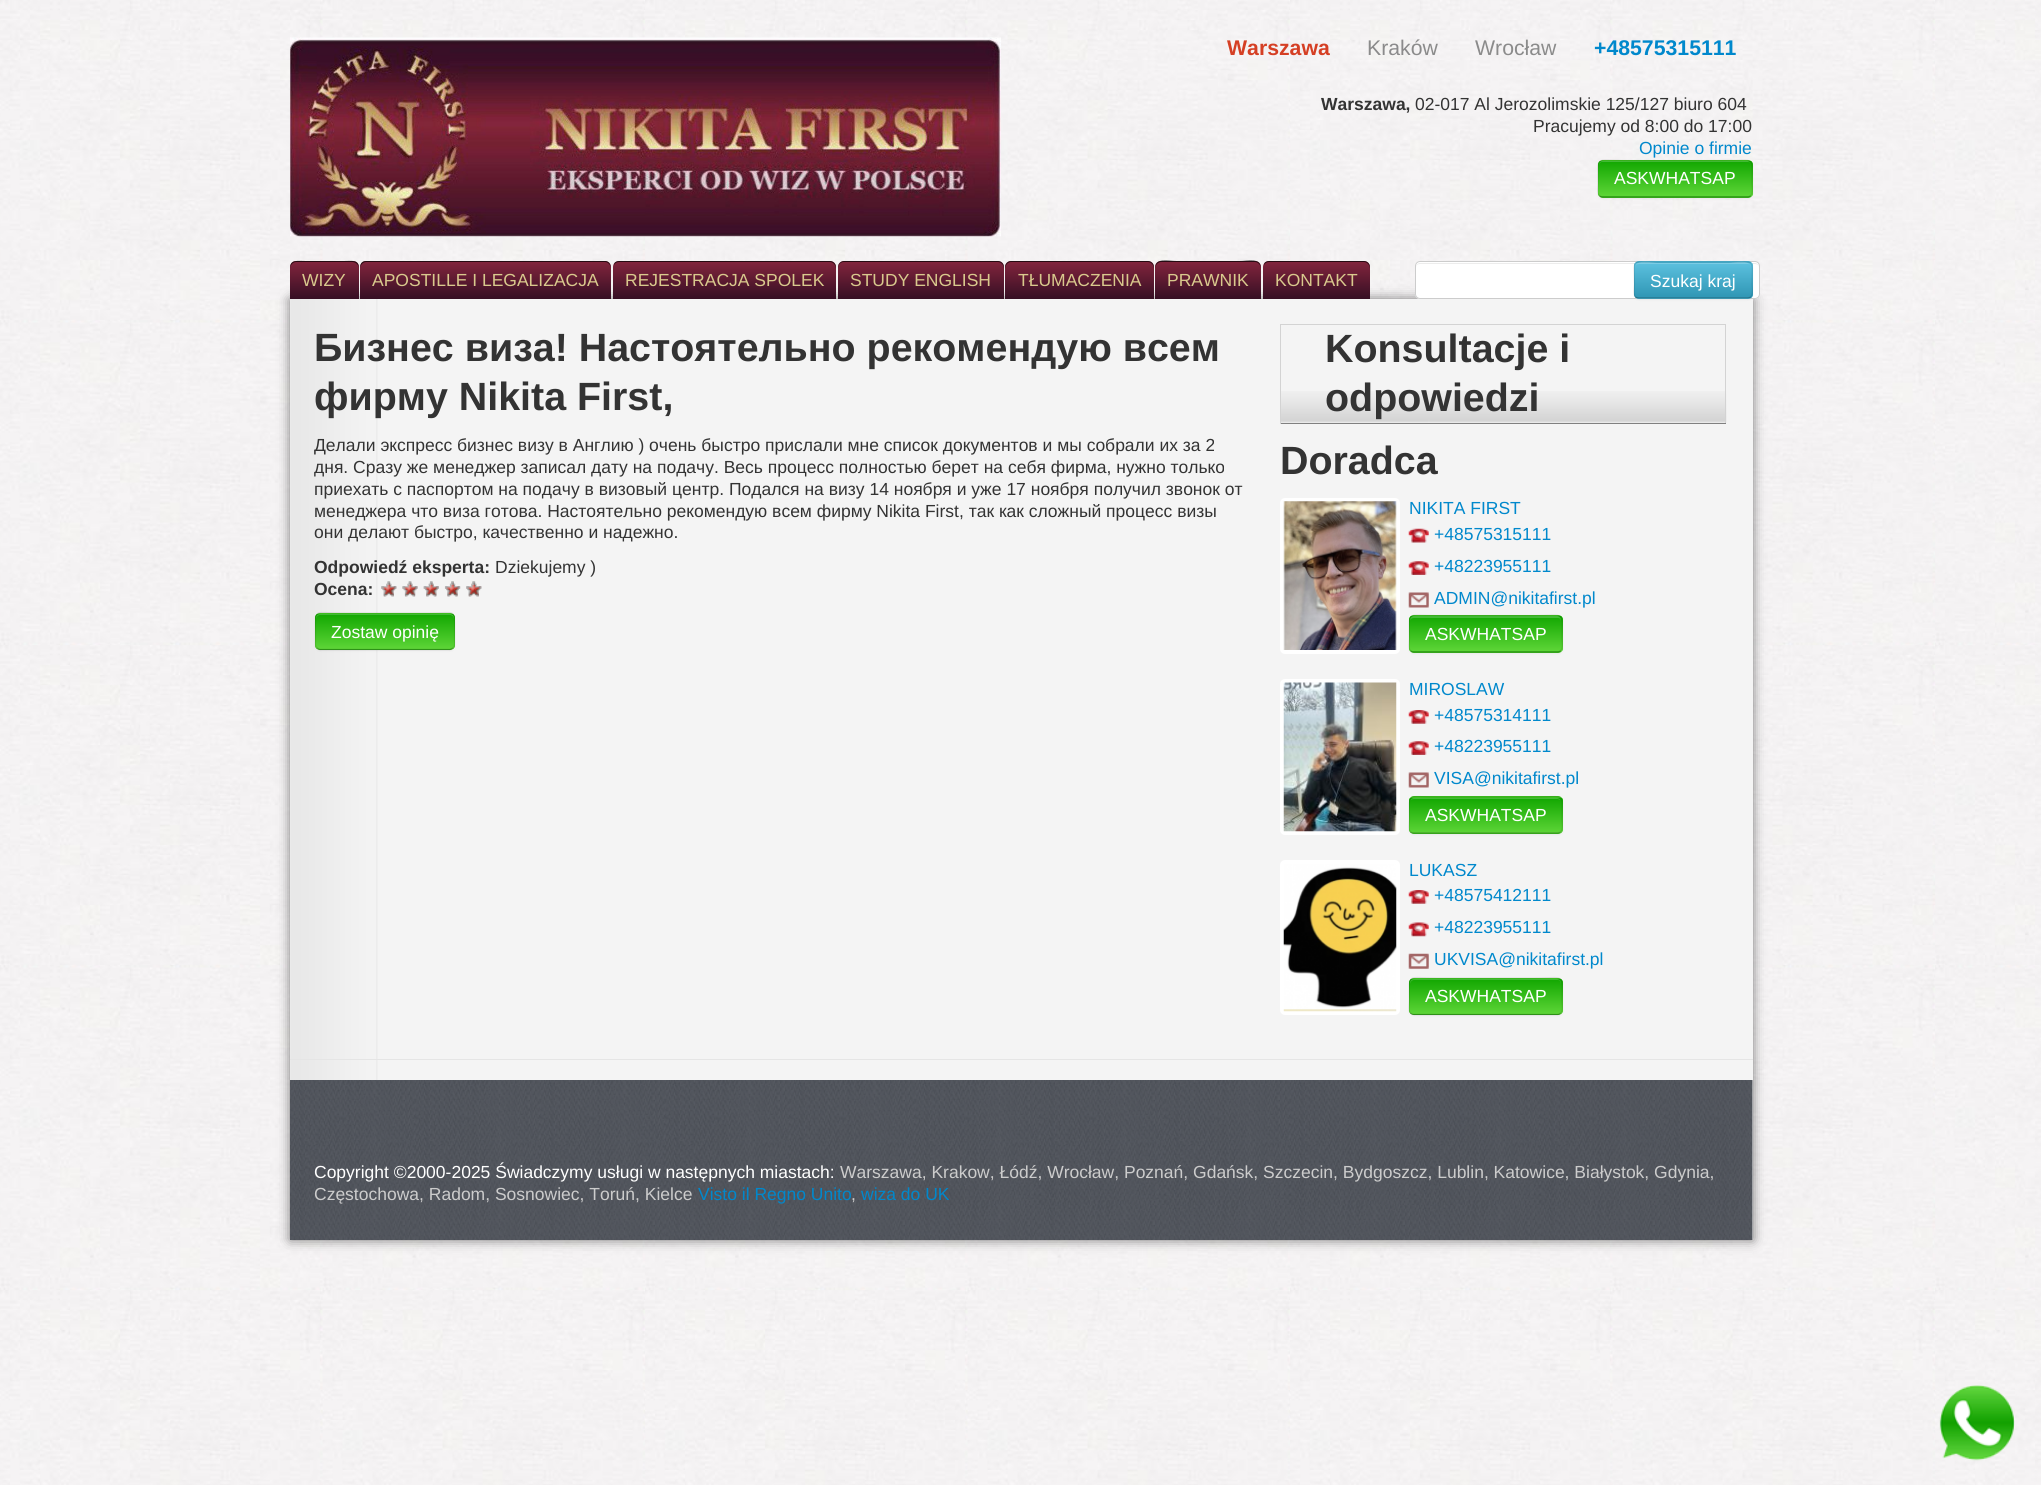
#include <cairo.h>
#include <math.h>
#include <stddef.h>


static void round_rect(cairo_t *cr, double x, double y, double w, double h, double r) {
    cairo_new_sub_path(cr);
    cairo_arc(cr, x + w - r, y + h - r, r, 0, M_PI / 2);
    cairo_arc(cr, x + r, y + h - r, r, M_PI / 2, M_PI);
    cairo_arc(cr, x + r, y + r, r, M_PI, 1.5 * M_PI);
    cairo_arc(cr, x + w - r, y + r, r, 1.5 * M_PI, 2 * M_PI);
    cairo_close_path(cr);
}

static void shadow(cairo_t *cr, double x, double y, double w, double h, double r, double blur, double alpha) {
    cairo_push_group_with_content(cr, CAIRO_CONTENT_ALPHA);
    cairo_set_operator(cr, CAIRO_OPERATOR_SOURCE);
    for (int i = 15; i >= -15 && fmin(w, h) + blur * i / 3 > 0; i -= 2) {
        double e = blur * i / 6;
        cairo_set_source_rgba(cr, 0, 0, 0, alpha * erfc((i - 1) / 8.5) / 2);
        round_rect(cr, x - e, y - e, w + 2 * e, h + 2 * e, fmax(0, fmin(r + e + blur * .6, fmin(w, h) / 2 + e)));
        cairo_fill(cr);
    }
    cairo_pattern_t *soft = cairo_pop_group(cr);
    cairo_mask(cr, soft);
    cairo_pattern_destroy(soft);
}

static void picture(cairo_t *cr, const char *path, double x, double y, double w, double h) {
    cairo_surface_t *image = cairo_image_surface_create_from_png(path);
    cairo_save(cr);
    cairo_set_source_surface(cr, image, x, y);
    cairo_rectangle(cr, x, y, w, h);
    cairo_fill(cr);
    cairo_restore(cr);
    cairo_surface_destroy(image);
}

int main(void) {
    cairo_surface_t *surface = cairo_image_surface_create(CAIRO_FORMAT_RGB24, 2041, 1485);
    cairo_t *cr = cairo_create(surface);
    cairo_font_options_t *options = cairo_font_options_create();
    cairo_font_options_set_hint_metrics(options, CAIRO_HINT_METRICS_OFF);
    cairo_font_options_set_hint_style(options, CAIRO_HINT_STYLE_NONE);
    cairo_set_font_options(cr, options);
    cairo_set_miter_limit(cr, 4);
    cairo_pattern_t *gradient;
    cairo_set_source_rgb(cr, 1, 1, 1);
    cairo_paint(cr);
    picture(cr, "img1.png", 0, 0, 2041, 1485);
    picture(cr, "img2.png", 290, 37, 711, 200);
    cairo_select_font_face(cr, "Liberation Sans", CAIRO_FONT_SLANT_NORMAL, CAIRO_FONT_WEIGHT_BOLD);
    cairo_set_font_size(cr, 21.25);
    cairo_set_source_rgb(cr, 0.835, 0.247, 0.141);
    cairo_move_to(cr, 1227, 55);
    cairo_show_text(cr, "Warszawa");
    cairo_select_font_face(cr, "Liberation Sans", CAIRO_FONT_SLANT_NORMAL, CAIRO_FONT_WEIGHT_NORMAL);
    cairo_set_source_rgb(cr, 0.545, 0.545, 0.545);
    cairo_move_to(cr, 1367, 55);
    cairo_show_text(cr, "Kraków");
    cairo_move_to(cr, 1475, 55);
    cairo_show_text(cr, "Wrocław");
    cairo_select_font_face(cr, "Liberation Sans", CAIRO_FONT_SLANT_NORMAL, CAIRO_FONT_WEIGHT_BOLD);
    cairo_set_source_rgb(cr, 0, 0.533, 0.8);
    cairo_move_to(cr, 1594, 55);
    cairo_show_text(cr, "+48575315111");
    cairo_set_font_size(cr, 17.5);
    cairo_set_source_rgb(cr, 0.2, 0.2, 0.2);
    cairo_move_to(cr, 1321, 110);
    cairo_show_text(cr, "Warszawa,");
    cairo_select_font_face(cr, "Liberation Sans", CAIRO_FONT_SLANT_NORMAL, CAIRO_FONT_WEIGHT_NORMAL);
    cairo_move_to(cr, 1415, 110);
    cairo_show_text(cr, "02-017 Al Jerozolimskie 125/127 biuro 604");
    cairo_move_to(cr, 1533, 132);
    cairo_show_text(cr, "Pracujemy od 8:00 do 17:00");
    cairo_set_source_rgb(cr, 0, 0.533, 0.8);
    cairo_move_to(cr, 1639, 154);
    cairo_show_text(cr, "Opinie o firmie");
    cairo_set_source_rgb(cr, 0, 0, 0);
    shadow(cr, 1598, 161, 155, 38, 5, 1, 0.05);
    cairo_set_source_rgb(cr, 0.243, 0.757, 0.125);
    round_rect(cr, 1598, 160, 155, 38, 5);
    cairo_fill(cr);
    cairo_save(cr);
    round_rect(cr, 1598, 160, 155, 38, 5);
    cairo_clip(cr);
    gradient = cairo_pattern_create_linear(1675, 161, 1675, 196);
    cairo_pattern_add_color_stop_rgba(gradient, 0, 0.071, 0.655, 0.004, 1);
    cairo_pattern_add_color_stop_rgba(gradient, 1, 0.365, 0.835, 0.216, 1);
    cairo_set_source(cr, gradient);
    cairo_pattern_destroy(gradient);
    cairo_rectangle(cr, 1598, 161, 155, 35);
    cairo_fill(cr);
    cairo_restore(cr);
    cairo_set_source_rgb(cr, 0.259, 0.725, 0.208);
    cairo_new_path(cr);
    cairo_move_to(cr, 1602, 162);
    cairo_line_to(cr, 1748, 162);
    cairo_curve_to(cr, 1750, 162, 1751, 164, 1751, 166);
    cairo_curve_to(cr, 1751, 164, 1750, 162, 1748, 161);
    cairo_line_to(cr, 1603, 161);
    cairo_curve_to(cr, 1600, 161, 1599, 163, 1599, 166);
    cairo_curve_to(cr, 1599, 164, 1600, 162, 1602, 162);
    cairo_close_path(cr);
    cairo_fill(cr);
    cairo_new_path(cr);
    cairo_move_to(cr, 1750.5, 195.5);
    cairo_curve_to(cr, 1750, 196.5, 1748.5, 197, 1747.5, 197);
    cairo_line_to(cr, 1602.5, 197);
    cairo_curve_to(cr, 1601.5, 197, 1600, 196.5, 1599.5, 195.5);
    cairo_set_source_rgba(cr, 0, 0, 0, 0.25);
    cairo_set_line_width(cr, 1.2);
    cairo_stroke(cr);
    cairo_new_path(cr);
    cairo_move_to(cr, 1599.5, 195.5);
    cairo_curve_to(cr, 1596.5, 193, 1598, 186.5, 1598, 183.5);
    cairo_curve_to(cr, 1598, 154.5, 1594, 160.5, 1626.5, 160.5);
    cairo_line_to(cr, 1723.5, 160.5);
    cairo_curve_to(cr, 1756, 160.5, 1752, 154.5, 1752, 183.5);
    cairo_curve_to(cr, 1752, 186.5, 1753.5, 193, 1750.5, 195.5);
    cairo_set_source_rgba(cr, 0, 0, 0, 0.1);
    cairo_stroke(cr);
    cairo_set_source_rgb(cr, 1, 1, 1);
    cairo_move_to(cr, 1614, 184);
    cairo_show_text(cr, "ASKWHATSAP");
    cairo_set_source_rgb(cr, 0, 0, 0);
    shadow(cr, 290, 299, 1463, 941, 0, 6, 0.5);
    cairo_set_source_rgb(cr, 0.957, 0.957, 0.957);
    cairo_rectangle(cr, 377, 299, 1376, 941);
    cairo_fill(cr);
    picture(cr, "img3.png", 290, 298, 88, 782);
    gradient = cairo_pattern_create_linear(324, 261, 324, 299);
    cairo_pattern_add_color_stop_rgba(gradient, 0, 0.514, 0.145, 0.239, 1);
    cairo_pattern_add_color_stop_rgba(gradient, 1, 0.212, 0.059, 0.141, 1);
    cairo_set_source(cr, gradient);
    cairo_pattern_destroy(gradient);
    cairo_new_path(cr);
    cairo_move_to(cr, 296, 261);
    cairo_line_to(cr, 353, 261);
    cairo_curve_to(cr, 356.5, 261, 359, 263.5, 359, 267);
    cairo_line_to(cr, 359, 299);
    cairo_line_to(cr, 290, 299);
    cairo_line_to(cr, 290, 267);
    cairo_curve_to(cr, 290, 263.5, 292.5, 261, 296, 261);
    cairo_close_path(cr);
    cairo_fill(cr);
    cairo_set_source_rgba(cr, 0, 0, 0, 0.7);
    cairo_new_path(cr);
    cairo_move_to(cr, 296, 262);
    cairo_line_to(cr, 352, 262);
    cairo_curve_to(cr, 356, 262, 359, 265, 359, 269);
    cairo_curve_to(cr, 359, 259, 352, 261, 344, 261);
    cairo_line_to(cr, 306, 261);
    cairo_curve_to(cr, 297, 261, 290, 259, 290, 269);
    cairo_curve_to(cr, 290, 265, 293, 262, 296, 262);
    cairo_close_path(cr);
    cairo_fill(cr);
    cairo_set_source_rgb(cr, 0.851, 0.788, 0.553);
    cairo_move_to(cr, 302, 286);
    cairo_show_text(cr, "WIZY");
    gradient = cairo_pattern_create_linear(486, 261, 486, 299);
    cairo_pattern_add_color_stop_rgba(gradient, 0, 0.514, 0.145, 0.239, 1);
    cairo_pattern_add_color_stop_rgba(gradient, 1, 0.212, 0.059, 0.141, 1);
    cairo_set_source(cr, gradient);
    cairo_pattern_destroy(gradient);
    cairo_new_path(cr);
    cairo_move_to(cr, 366, 261);
    cairo_line_to(cr, 605, 261);
    cairo_curve_to(cr, 608.5, 261, 611, 263.5, 611, 267);
    cairo_line_to(cr, 611, 299);
    cairo_line_to(cr, 360, 299);
    cairo_line_to(cr, 360, 267);
    cairo_curve_to(cr, 360, 263.5, 362.5, 261, 366, 261);
    cairo_close_path(cr);
    cairo_fill(cr);
    cairo_set_source_rgba(cr, 0, 0, 0, 0.7);
    cairo_new_path(cr);
    cairo_move_to(cr, 366, 262);
    cairo_line_to(cr, 605, 262);
    cairo_curve_to(cr, 608, 262, 611, 265, 611, 269);
    cairo_curve_to(cr, 611, 266, 610, 262, 606, 261);
    cairo_line_to(cr, 366, 261);
    cairo_curve_to(cr, 361, 261, 360, 265, 360, 269);
    cairo_curve_to(cr, 360, 265, 363, 262, 366, 262);
    cairo_close_path(cr);
    cairo_fill(cr);
    cairo_set_source_rgb(cr, 0.851, 0.788, 0.553);
    cairo_move_to(cr, 372, 286);
    cairo_show_text(cr, "APOSTILLE I LEGALIZACJA");
    gradient = cairo_pattern_create_linear(724, 261, 724, 299);
    cairo_pattern_add_color_stop_rgba(gradient, 0, 0.514, 0.145, 0.239, 1);
    cairo_pattern_add_color_stop_rgba(gradient, 1, 0.212, 0.059, 0.141, 1);
    cairo_set_source(cr, gradient);
    cairo_pattern_destroy(gradient);
    cairo_new_path(cr);
    cairo_move_to(cr, 619, 261);
    cairo_line_to(cr, 830, 261);
    cairo_curve_to(cr, 833.5, 261, 836, 263.5, 836, 267);
    cairo_line_to(cr, 836, 299);
    cairo_line_to(cr, 613, 299);
    cairo_line_to(cr, 613, 267);
    cairo_curve_to(cr, 613, 263.5, 615.5, 261, 619, 261);
    cairo_close_path(cr);
    cairo_fill(cr);
    cairo_set_source_rgba(cr, 0, 0, 0, 0.7);
    cairo_new_path(cr);
    cairo_move_to(cr, 619, 262);
    cairo_line_to(cr, 830, 262);
    cairo_curve_to(cr, 833, 262, 836, 265, 836, 269);
    cairo_line_to(cr, 836, 267);
    cairo_curve_to(cr, 836, 264, 833, 261, 830, 261);
    cairo_line_to(cr, 619, 261);
    cairo_curve_to(cr, 617, 261, 614, 262, 614, 265);
    cairo_curve_to(cr, 615, 263, 617, 262, 619, 262);
    cairo_close_path(cr);
    cairo_fill(cr);
    cairo_set_source_rgb(cr, 0.851, 0.788, 0.553);
    cairo_move_to(cr, 625, 286);
    cairo_show_text(cr, "REJESTRACJA SPOLEK");
    gradient = cairo_pattern_create_linear(921, 261, 921, 299);
    cairo_pattern_add_color_stop_rgba(gradient, 0, 0.514, 0.145, 0.239, 1);
    cairo_pattern_add_color_stop_rgba(gradient, 1, 0.212, 0.059, 0.141, 1);
    cairo_set_source(cr, gradient);
    cairo_pattern_destroy(gradient);
    cairo_new_path(cr);
    cairo_move_to(cr, 844, 261);
    cairo_line_to(cr, 998, 261);
    cairo_curve_to(cr, 1001.5, 261, 1004, 263.5, 1004, 267);
    cairo_line_to(cr, 1004, 299);
    cairo_line_to(cr, 838, 299);
    cairo_line_to(cr, 838, 267);
    cairo_curve_to(cr, 838, 263.5, 840.5, 261, 844, 261);
    cairo_close_path(cr);
    cairo_fill(cr);
    cairo_set_source_rgba(cr, 0, 0, 0, 0.7);
    cairo_new_path(cr);
    cairo_move_to(cr, 844, 262);
    cairo_line_to(cr, 998, 262);
    cairo_curve_to(cr, 1001, 262, 1004, 265, 1004, 269);
    cairo_line_to(cr, 1004, 267);
    cairo_curve_to(cr, 1004, 264, 1001, 261, 998, 261);
    cairo_line_to(cr, 844, 261);
    cairo_curve_to(cr, 841, 261, 838, 264, 838, 267);
    cairo_line_to(cr, 838, 269);
    cairo_curve_to(cr, 838, 265, 840, 262, 844, 262);
    cairo_close_path(cr);
    cairo_fill(cr);
    cairo_set_source_rgb(cr, 0.851, 0.788, 0.553);
    cairo_move_to(cr, 850, 286);
    cairo_show_text(cr, "STUDY ENGLISH");
    gradient = cairo_pattern_create_linear(1079, 261, 1079, 299);
    cairo_pattern_add_color_stop_rgba(gradient, 0, 0.514, 0.145, 0.239, 1);
    cairo_pattern_add_color_stop_rgba(gradient, 1, 0.212, 0.059, 0.141, 1);
    cairo_set_source(cr, gradient);
    cairo_pattern_destroy(gradient);
    cairo_new_path(cr);
    cairo_move_to(cr, 1011, 261);
    cairo_line_to(cr, 1148, 261);
    cairo_curve_to(cr, 1151.5, 261, 1154, 263.5, 1154, 267);
    cairo_line_to(cr, 1154, 299);
    cairo_line_to(cr, 1005, 299);
    cairo_line_to(cr, 1005, 267);
    cairo_curve_to(cr, 1005, 263.5, 1007.5, 261, 1011, 261);
    cairo_close_path(cr);
    cairo_fill(cr);
    cairo_set_source_rgba(cr, 0, 0, 0, 0.7);
    cairo_new_path(cr);
    cairo_move_to(cr, 1011, 262);
    cairo_line_to(cr, 1148, 262);
    cairo_curve_to(cr, 1151, 262, 1154, 265, 1154, 269);
    cairo_line_to(cr, 1154, 267);
    cairo_curve_to(cr, 1154, 264, 1151, 261, 1148, 261);
    cairo_line_to(cr, 1011, 261);
    cairo_curve_to(cr, 1008, 261, 1005, 264, 1005, 267);
    cairo_line_to(cr, 1005, 269);
    cairo_curve_to(cr, 1005, 265, 1008, 262, 1011, 262);
    cairo_close_path(cr);
    cairo_fill(cr);
    cairo_set_source_rgb(cr, 0.851, 0.788, 0.553);
    cairo_move_to(cr, 1018, 286);
    cairo_show_text(cr, "TŁUMACZENIA");
    gradient = cairo_pattern_create_linear(1208, 261, 1208, 299);
    cairo_pattern_add_color_stop_rgba(gradient, 0, 0.514, 0.145, 0.239, 1);
    cairo_pattern_add_color_stop_rgba(gradient, 1, 0.212, 0.059, 0.141, 1);
    cairo_set_source(cr, gradient);
    cairo_pattern_destroy(gradient);
    cairo_new_path(cr);
    cairo_move_to(cr, 1161, 261);
    cairo_line_to(cr, 1255, 261);
    cairo_curve_to(cr, 1258.5, 261, 1261, 263.5, 1261, 267);
    cairo_line_to(cr, 1261, 299);
    cairo_line_to(cr, 1155, 299);
    cairo_line_to(cr, 1155, 267);
    cairo_curve_to(cr, 1155, 263.5, 1157.5, 261, 1161, 261);
    cairo_close_path(cr);
    cairo_fill(cr);
    cairo_set_source_rgba(cr, 0, 0, 0, 0.7);
    cairo_new_path(cr);
    cairo_move_to(cr, 1161, 262);
    cairo_line_to(cr, 1255, 262);
    cairo_curve_to(cr, 1258, 262, 1261, 265, 1261, 269);
    cairo_curve_to(cr, 1261, 257, 1249, 261, 1239, 261);
    cairo_line_to(cr, 1177, 261);
    cairo_curve_to(cr, 1167, 261, 1155, 257, 1155, 269);
    cairo_curve_to(cr, 1155, 265, 1158, 262, 1161, 262);
    cairo_close_path(cr);
    cairo_fill(cr);
    cairo_set_source_rgb(cr, 0.851, 0.788, 0.553);
    cairo_move_to(cr, 1167, 286);
    cairo_show_text(cr, "PRAWNIK");
    gradient = cairo_pattern_create_linear(1316, 261, 1316, 299);
    cairo_pattern_add_color_stop_rgba(gradient, 0, 0.514, 0.145, 0.239, 1);
    cairo_pattern_add_color_stop_rgba(gradient, 1, 0.212, 0.059, 0.141, 1);
    cairo_set_source(cr, gradient);
    cairo_pattern_destroy(gradient);
    cairo_new_path(cr);
    cairo_move_to(cr, 1269, 261);
    cairo_line_to(cr, 1364, 261);
    cairo_curve_to(cr, 1367.5, 261, 1370, 263.5, 1370, 267);
    cairo_line_to(cr, 1370, 299);
    cairo_line_to(cr, 1263, 299);
    cairo_line_to(cr, 1263, 267);
    cairo_curve_to(cr, 1263, 263.5, 1265.5, 261, 1269, 261);
    cairo_close_path(cr);
    cairo_fill(cr);
    cairo_set_source_rgba(cr, 0, 0, 0, 0.7);
    cairo_new_path(cr);
    cairo_move_to(cr, 1269, 262);
    cairo_line_to(cr, 1364, 262);
    cairo_curve_to(cr, 1367, 262, 1370, 265, 1370, 269);
    cairo_line_to(cr, 1370, 267);
    cairo_curve_to(cr, 1370, 264, 1367, 261, 1364, 261);
    cairo_line_to(cr, 1269, 261);
    cairo_curve_to(cr, 1267, 261, 1264, 262, 1264, 265);
    cairo_curve_to(cr, 1265, 263, 1267, 262, 1269, 262);
    cairo_close_path(cr);
    cairo_fill(cr);
    cairo_set_source_rgb(cr, 0.851, 0.788, 0.553);
    cairo_move_to(cr, 1275, 286);
    cairo_show_text(cr, "KONTAKT");
    cairo_set_source_rgb(cr, 1, 1, 1);
    round_rect(cr, 1415, 261, 345, 38, 5);
    cairo_fill(cr);
    cairo_set_source_rgb(cr, 0.925, 0.925, 0.925);
    cairo_new_path(cr);
    cairo_move_to(cr, 1420, 264);
    cairo_line_to(cr, 1755, 264);
    cairo_curve_to(cr, 1757, 264, 1759, 265, 1759, 268);
    cairo_line_to(cr, 1759, 267);
    cairo_curve_to(cr, 1759, 265, 1757, 263, 1755, 263);
    cairo_line_to(cr, 1420, 263);
    cairo_curve_to(cr, 1418, 263, 1416, 265, 1416, 267);
    cairo_line_to(cr, 1416, 268);
    cairo_curve_to(cr, 1416, 265, 1418, 264, 1420, 264);
    cairo_close_path(cr);
    cairo_fill(cr);
    round_rect(cr, 1415.5, 261.5, 344, 37, 4.5);
    cairo_set_source_rgb(cr, 0.8, 0.8, 0.8);
    cairo_set_line_width(cr, 1);
    cairo_stroke(cr);
    cairo_set_source_rgb(cr, 0, 0, 0);
    shadow(cr, 1634, 263, 119, 37, 5, 1, 0.05);
    cairo_set_source_rgb(cr, 0.286, 0.686, 0.804);
    round_rect(cr, 1634, 261, 119, 38, 5);
    cairo_fill(cr);
    cairo_save(cr);
    round_rect(cr, 1634, 261, 119, 38, 5);
    cairo_clip(cr);
    gradient = cairo_pattern_create_linear(1693, 263, 1693, 298);
    cairo_pattern_add_color_stop_rgba(gradient, 0, 0.357, 0.753, 0.871, 1);
    cairo_pattern_add_color_stop_rgba(gradient, 1, 0.184, 0.588, 0.706, 1);
    cairo_set_source(cr, gradient);
    cairo_pattern_destroy(gradient);
    cairo_rectangle(cr, 1634, 263, 119, 35);
    cairo_fill(cr);
    cairo_restore(cr);
    cairo_set_source_rgba(cr, 1, 1, 1, 0.2);
    cairo_new_path(cr);
    cairo_move_to(cr, 1639, 264);
    cairo_line_to(cr, 1748, 264);
    cairo_curve_to(cr, 1750, 264, 1751, 265, 1751, 268);
    cairo_curve_to(cr, 1751, 258, 1732, 263, 1729, 263);
    cairo_line_to(cr, 1657, 263);
    cairo_curve_to(cr, 1654, 263, 1635, 258, 1635, 268);
    cairo_curve_to(cr, 1635, 265, 1637, 264, 1639, 264);
    cairo_close_path(cr);
    cairo_fill(cr);
    cairo_new_path(cr);
    cairo_move_to(cr, 1750.5, 297);
    cairo_curve_to(cr, 1750, 297.5, 1748.5, 298, 1747.5, 298);
    cairo_line_to(cr, 1639, 298);
    cairo_curve_to(cr, 1637.5, 298, 1636.5, 297.5, 1635.5, 297);
    cairo_set_source_rgba(cr, 0, 0, 0, 0.25);
    cairo_set_line_width(cr, 1.2);
    cairo_stroke(cr);
    cairo_new_path(cr);
    cairo_move_to(cr, 1635.5, 297);
    cairo_curve_to(cr, 1633, 294, 1634.5, 287.5, 1634.5, 284.5);
    cairo_curve_to(cr, 1634.5, 258, 1629.5, 262, 1657, 262);
    cairo_line_to(cr, 1729.5, 262);
    cairo_curve_to(cr, 1756.5, 262, 1752, 258, 1752, 284.5);
    cairo_curve_to(cr, 1752, 287.5, 1753.5, 294, 1750.5, 297);
    cairo_set_source_rgba(cr, 0, 0, 0, 0.1);
    cairo_stroke(cr);
    cairo_set_source_rgb(cr, 1, 1, 1);
    cairo_move_to(cr, 1650, 287);
    cairo_show_text(cr, "Szukaj kraj");
    cairo_select_font_face(cr, "Liberation Sans", CAIRO_FONT_SLANT_NORMAL, CAIRO_FONT_WEIGHT_BOLD);
    cairo_set_font_size(cr, 39.4);
    cairo_set_source_rgb(cr, 0.2, 0.2, 0.2);
    cairo_move_to(cr, 314, 361);
    cairo_show_text(cr, "Бизнес виза! Настоятельно рекомендую всем");
    cairo_move_to(cr, 314, 410);
    cairo_show_text(cr, "фирму Nikita First,");
    cairo_select_font_face(cr, "Liberation Sans", CAIRO_FONT_SLANT_NORMAL, CAIRO_FONT_WEIGHT_NORMAL);
    cairo_set_font_size(cr, 17.5);
    cairo_move_to(cr, 314, 451);
    cairo_show_text(cr, "Делали экспресс бизнес визу в Англию ) очень быстро прислали мне список документов и мы собрали их за 2");
    cairo_move_to(cr, 314, 473);
    cairo_show_text(cr, "дня. Сразу же менеджер записал дату на подачу. Весь процесс полностью берет на себя фирма, нужно только");
    cairo_move_to(cr, 314, 495);
    cairo_show_text(cr, "приехать с паспортом на подачу в визовый центр. Подался на визу 14 ноября и уже 17 ноября получил звонок от");
    cairo_move_to(cr, 314, 517);
    cairo_show_text(cr, "менеджера что виза готова. Настоятельно рекомендую всем фирму Nikita First, так как сложный процесс визы");
    cairo_move_to(cr, 314, 538);
    cairo_show_text(cr, "они делают быстро, качественно и надежно.");
    cairo_select_font_face(cr, "Liberation Sans", CAIRO_FONT_SLANT_NORMAL, CAIRO_FONT_WEIGHT_BOLD);
    cairo_move_to(cr, 314, 573);
    cairo_show_text(cr, "Odpowiedź eksperta:");
    cairo_select_font_face(cr, "Liberation Sans", CAIRO_FONT_SLANT_NORMAL, CAIRO_FONT_WEIGHT_NORMAL);
    cairo_move_to(cr, 495, 573);
    cairo_show_text(cr, "Dziekujemy )");
    cairo_select_font_face(cr, "Liberation Sans", CAIRO_FONT_SLANT_NORMAL, CAIRO_FONT_WEIGHT_BOLD);
    cairo_move_to(cr, 314, 595);
    cairo_show_text(cr, "Ocena:");
    picture(cr, "img4.png", 381, 581, 16, 16);
    picture(cr, "img5.png", 381, 581, 16, 16);
    picture(cr, "img6.png", 402, 581, 16, 16);
    picture(cr, "img7.png", 402, 581, 16, 16);
    picture(cr, "img8.png", 423, 581, 16, 16);
    picture(cr, "img9.png", 423, 581, 16, 16);
    picture(cr, "img10.png", 445, 581, 16, 16);
    picture(cr, "img11.png", 444, 581, 17, 16);
    picture(cr, "img12.png", 466, 581, 16, 16);
    picture(cr, "img13.png", 466, 581, 16, 16);
    cairo_set_source_rgb(cr, 0, 0, 0);
    shadow(cr, 315, 614, 140, 37, 5, 1, 0.05);
    cairo_set_source_rgb(cr, 0.243, 0.757, 0.125);
    round_rect(cr, 315, 613, 140, 37, 5);
    cairo_fill(cr);
    cairo_save(cr);
    round_rect(cr, 315, 613, 140, 37, 5);
    cairo_clip(cr);
    gradient = cairo_pattern_create_linear(385, 614, 385, 649);
    cairo_pattern_add_color_stop_rgba(gradient, 0, 0.071, 0.655, 0.004, 1);
    cairo_pattern_add_color_stop_rgba(gradient, 1, 0.365, 0.835, 0.216, 1);
    cairo_set_source(cr, gradient);
    cairo_pattern_destroy(gradient);
    cairo_rectangle(cr, 315, 614, 140, 35);
    cairo_fill(cr);
    cairo_restore(cr);
    cairo_set_source_rgba(cr, 1, 1, 1, 0.2);
    cairo_new_path(cr);
    cairo_move_to(cr, 320, 615);
    cairo_line_to(cr, 450, 615);
    cairo_curve_to(cr, 452, 615, 454, 617, 454, 619);
    cairo_line_to(cr, 454, 618);
    cairo_curve_to(cr, 454, 616, 452, 614, 450, 614);
    cairo_line_to(cr, 320, 614);
    cairo_curve_to(cr, 318, 614, 316, 616, 316, 618);
    cairo_line_to(cr, 316, 619);
    cairo_curve_to(cr, 316, 617, 318, 615, 320, 615);
    cairo_close_path(cr);
    cairo_fill(cr);
    cairo_new_path(cr);
    cairo_move_to(cr, 453, 648);
    cairo_line_to(cr, 450, 649.5);
    cairo_line_to(cr, 319.5, 649.5);
    cairo_line_to(cr, 317, 648);
    cairo_set_source_rgba(cr, 0, 0, 0, 0.25);
    cairo_stroke(cr);
    cairo_new_path(cr);
    cairo_move_to(cr, 317, 648);
    cairo_curve_to(cr, 315, 646, 315.5, 643, 315.5, 640.5);
    cairo_line_to(cr, 315.5, 631);
    cairo_curve_to(cr, 315.5, 607.5, 313.5, 613, 341.5, 613);
    cairo_line_to(cr, 428.5, 613);
    cairo_curve_to(cr, 456.5, 613, 454.5, 607.5, 454.5, 631);
    cairo_line_to(cr, 454.5, 640.5);
    cairo_curve_to(cr, 454.5, 643, 455, 646, 453, 648);
    cairo_set_source_rgba(cr, 0, 0, 0, 0.1);
    cairo_stroke(cr);
    cairo_select_font_face(cr, "Liberation Sans", CAIRO_FONT_SLANT_NORMAL, CAIRO_FONT_WEIGHT_NORMAL);
    cairo_set_source_rgb(cr, 1, 1, 1);
    cairo_move_to(cr, 331, 638);
    cairo_show_text(cr, "Zostaw opinię");
    picture(cr, "img14.png", 1281, 391, 446, 32);
    cairo_set_source_rgb(cr, 0.827, 0.827, 0.827);
    cairo_rectangle(cr, 1280, 324, 446, 1);
    cairo_fill(cr);
    cairo_rectangle(cr, 1725, 324, 1, 100);
    cairo_fill(cr);
    cairo_set_source_rgb(cr, 0.502, 0.502, 0.502);
    cairo_rectangle(cr, 1280, 423, 446, 1);
    cairo_fill(cr);
    cairo_set_source_rgb(cr, 0.827, 0.827, 0.827);
    cairo_rectangle(cr, 1280, 324, 1, 100);
    cairo_fill(cr);
    cairo_select_font_face(cr, "Liberation Sans", CAIRO_FONT_SLANT_NORMAL, CAIRO_FONT_WEIGHT_BOLD);
    cairo_set_font_size(cr, 39.4);
    cairo_set_source_rgb(cr, 0.2, 0.2, 0.2);
    cairo_move_to(cr, 1325, 362);
    cairo_show_text(cr, "Konsultacje i");
    cairo_move_to(cr, 1325, 411);
    cairo_show_text(cr, "odpowiedzi");
    cairo_move_to(cr, 1280, 474);
    cairo_show_text(cr, "Doradca");
    round_rect(cr, 1282, 500, 116, 152, 3);
    cairo_set_source_rgb(cr, 1, 1, 1);
    cairo_set_line_width(cr, 4);
    cairo_stroke(cr);
    picture(cr, "img15.png", 1283, 501, 114, 149);
    cairo_select_font_face(cr, "Liberation Sans", CAIRO_FONT_SLANT_NORMAL, CAIRO_FONT_WEIGHT_NORMAL);
    cairo_set_font_size(cr, 17.5);
    cairo_set_source_rgb(cr, 0, 0.533, 0.8);
    cairo_move_to(cr, 1409, 514);
    cairo_show_text(cr, "NIKITA FIRST");
    picture(cr, "img16.png", 1408, 528, 21, 15);
    cairo_move_to(cr, 1434, 540);
    cairo_show_text(cr, "+48575315111");
    picture(cr, "img17.png", 1408, 561, 21, 14);
    cairo_move_to(cr, 1434, 572);
    cairo_show_text(cr, "+48223955111");
    picture(cr, "img18.png", 1408, 592, 21, 16);
    cairo_move_to(cr, 1434, 604);
    cairo_show_text(cr, "ADMIN@nikitafirst.pl");
    cairo_set_source_rgb(cr, 0, 0, 0);
    shadow(cr, 1409, 616, 154, 38, 5, 1, 0.05);
    cairo_set_source_rgb(cr, 0.243, 0.757, 0.125);
    round_rect(cr, 1409, 615, 154, 38, 5);
    cairo_fill(cr);
    cairo_save(cr);
    round_rect(cr, 1409, 615, 154, 38, 5);
    cairo_clip(cr);
    gradient = cairo_pattern_create_linear(1486, 616, 1486, 651);
    cairo_pattern_add_color_stop_rgba(gradient, 0, 0.071, 0.655, 0.004, 1);
    cairo_pattern_add_color_stop_rgba(gradient, 1, 0.365, 0.835, 0.216, 1);
    cairo_set_source(cr, gradient);
    cairo_pattern_destroy(gradient);
    cairo_rectangle(cr, 1409, 616, 154, 35);
    cairo_fill(cr);
    cairo_restore(cr);
    cairo_set_source_rgba(cr, 1, 1, 1, 0.2);
    cairo_new_path(cr);
    cairo_move_to(cr, 1414, 618);
    cairo_line_to(cr, 1558, 618);
    cairo_curve_to(cr, 1560, 618, 1561, 619, 1561, 621);
    cairo_line_to(cr, 1561, 620);
    cairo_curve_to(cr, 1561, 618, 1559, 616, 1557, 616);
    cairo_line_to(cr, 1414, 616);
    cairo_curve_to(cr, 1412, 616, 1410, 618, 1410, 620);
    cairo_line_to(cr, 1410, 621);
    cairo_curve_to(cr, 1410, 619, 1412, 618, 1414, 618);
    cairo_close_path(cr);
    cairo_fill(cr);
    cairo_new_path(cr);
    cairo_move_to(cr, 1560.5, 650.5);
    cairo_curve_to(cr, 1560, 651.5, 1558.5, 652, 1557.5, 652);
    cairo_line_to(cr, 1414, 652);
    cairo_curve_to(cr, 1412.5, 652, 1411.5, 651.5, 1410.5, 650.5);
    cairo_set_source_rgba(cr, 0, 0, 0, 0.25);
    cairo_set_line_width(cr, 1.2);
    cairo_stroke(cr);
    cairo_new_path(cr);
    cairo_move_to(cr, 1410.5, 650.5);
    cairo_curve_to(cr, 1408, 648, 1409.5, 641.5, 1409.5, 638.5);
    cairo_curve_to(cr, 1409.5, 609.5, 1405.5, 615.5, 1437.5, 615.5);
    cairo_line_to(cr, 1533.5, 615.5);
    cairo_curve_to(cr, 1566, 615.5, 1562, 609.5, 1562, 638.5);
    cairo_curve_to(cr, 1562, 641.5, 1563.5, 648, 1560.5, 650.5);
    cairo_set_source_rgba(cr, 0, 0, 0, 0.1);
    cairo_stroke(cr);
    cairo_set_source_rgb(cr, 1, 1, 1);
    cairo_move_to(cr, 1425, 640);
    cairo_show_text(cr, "ASKWHATSAP");
    round_rect(cr, 1282, 681, 116, 152, 3);
    cairo_set_line_width(cr, 4);
    cairo_stroke(cr);
    picture(cr, "img19.png", 1283, 682, 114, 150);
    cairo_set_source_rgb(cr, 0, 0.533, 0.8);
    cairo_move_to(cr, 1409, 695);
    cairo_show_text(cr, "MIROSLAW");
    picture(cr, "img20.png", 1408, 710, 21, 14);
    cairo_move_to(cr, 1434, 721);
    cairo_show_text(cr, "+48575314111");
    picture(cr, "img17.png", 1408, 741, 21, 14);
    cairo_move_to(cr, 1434, 752);
    cairo_show_text(cr, "+48223955111");
    picture(cr, "img18.png", 1408, 772, 21, 16);
    cairo_move_to(cr, 1434, 784);
    cairo_show_text(cr, "VISA@nikitafirst.pl");
    cairo_set_source_rgb(cr, 0, 0, 0);
    shadow(cr, 1409, 798, 154, 37, 5, 1, 0.05);
    cairo_set_source_rgb(cr, 0.243, 0.757, 0.125);
    round_rect(cr, 1409, 796, 154, 38, 5);
    cairo_fill(cr);
    cairo_save(cr);
    round_rect(cr, 1409, 796, 154, 38, 5);
    cairo_clip(cr);
    gradient = cairo_pattern_create_linear(1486, 798, 1486, 833);
    cairo_pattern_add_color_stop_rgba(gradient, 0, 0.071, 0.655, 0.004, 1);
    cairo_pattern_add_color_stop_rgba(gradient, 1, 0.365, 0.835, 0.216, 1);
    cairo_set_source(cr, gradient);
    cairo_pattern_destroy(gradient);
    cairo_rectangle(cr, 1409, 798, 154, 35);
    cairo_fill(cr);
    cairo_restore(cr);
    cairo_set_source_rgb(cr, 0.259, 0.725, 0.208);
    cairo_new_path(cr);
    cairo_move_to(cr, 1414, 799);
    cairo_line_to(cr, 1558, 799);
    cairo_line_to(cr, 1560, 800);
    cairo_curve_to(cr, 1560, 799, 1558, 798, 1557, 798);
    cairo_line_to(cr, 1414, 798);
    cairo_curve_to(cr, 1412, 798, 1410, 800, 1410, 802);
    cairo_curve_to(cr, 1410, 800, 1412, 799, 1414, 799);
    cairo_close_path(cr);
    cairo_fill(cr);
    cairo_new_path(cr);
    cairo_move_to(cr, 1560.5, 832);
    cairo_curve_to(cr, 1560, 832.5, 1558.5, 833, 1557.5, 833);
    cairo_line_to(cr, 1414, 833);
    cairo_curve_to(cr, 1412.5, 833, 1411.5, 832.5, 1410.5, 832);
    cairo_set_source_rgba(cr, 0, 0, 0, 0.25);
    cairo_set_line_width(cr, 1.2);
    cairo_stroke(cr);
    cairo_new_path(cr);
    cairo_move_to(cr, 1410.5, 832);
    cairo_curve_to(cr, 1408, 829, 1409.5, 822.5, 1409.5, 819.5);
    cairo_curve_to(cr, 1409.5, 791, 1405.5, 797, 1437.5, 797);
    cairo_line_to(cr, 1533.5, 797);
    cairo_curve_to(cr, 1566, 797, 1562, 791, 1562, 819.5);
    cairo_curve_to(cr, 1562, 822.5, 1563.5, 829, 1560.5, 832);
    cairo_set_source_rgba(cr, 0, 0, 0, 0.1);
    cairo_stroke(cr);
    cairo_set_source_rgb(cr, 1, 1, 1);
    cairo_move_to(cr, 1425, 821);
    cairo_show_text(cr, "ASKWHATSAP");
    round_rect(cr, 1282, 862, 116, 151, 3);
    cairo_set_line_width(cr, 4);
    cairo_stroke(cr);
    picture(cr, "img21.png", 1283, 864, 114, 148);
    cairo_set_source_rgb(cr, 0, 0.533, 0.8);
    cairo_move_to(cr, 1409, 876);
    cairo_show_text(cr, "LUKASZ");
    picture(cr, "img20.png", 1408, 890, 21, 14);
    cairo_move_to(cr, 1434, 901);
    cairo_show_text(cr, "+48575412111");
    picture(cr, "img22.png", 1408, 922, 21, 15);
    cairo_move_to(cr, 1434, 933);
    cairo_show_text(cr, "+48223955111");
    picture(cr, "img23.png", 1408, 953, 21, 16);
    cairo_move_to(cr, 1434, 965);
    cairo_show_text(cr, "UKVISA@nikitafirst.pl");
    cairo_set_source_rgb(cr, 0, 0, 0);
    shadow(cr, 1409, 979, 154, 37, 5, 1, 0.05);
    cairo_set_source_rgb(cr, 0.243, 0.757, 0.125);
    round_rect(cr, 1409, 978, 154, 37, 5);
    cairo_fill(cr);
    cairo_save(cr);
    round_rect(cr, 1409, 978, 154, 37, 5);
    cairo_clip(cr);
    gradient = cairo_pattern_create_linear(1486, 979, 1486, 1014);
    cairo_pattern_add_color_stop_rgba(gradient, 0, 0.071, 0.655, 0.004, 1);
    cairo_pattern_add_color_stop_rgba(gradient, 1, 0.365, 0.835, 0.216, 1);
    cairo_set_source(cr, gradient);
    cairo_pattern_destroy(gradient);
    cairo_rectangle(cr, 1409, 979, 154, 35);
    cairo_fill(cr);
    cairo_restore(cr);
    cairo_set_source_rgba(cr, 1, 1, 1, 0.2);
    cairo_new_path(cr);
    cairo_move_to(cr, 1414, 980);
    cairo_line_to(cr, 1558, 980);
    cairo_curve_to(cr, 1560, 980, 1561, 982, 1561, 984);
    cairo_line_to(cr, 1561, 983);
    cairo_curve_to(cr, 1561, 981, 1559, 979, 1557, 979);
    cairo_line_to(cr, 1414, 979);
    cairo_curve_to(cr, 1412, 979, 1410, 981, 1410, 983);
    cairo_line_to(cr, 1410, 984);
    cairo_curve_to(cr, 1410, 982, 1412, 980, 1414, 980);
    cairo_close_path(cr);
    cairo_fill(cr);
    cairo_new_path(cr);
    cairo_move_to(cr, 1560.5, 1013);
    cairo_curve_to(cr, 1560, 1014, 1558.5, 1014.5, 1557.5, 1014.5);
    cairo_line_to(cr, 1414, 1014.5);
    cairo_curve_to(cr, 1412.5, 1014.5, 1411.5, 1014, 1410.5, 1013);
    cairo_set_source_rgba(cr, 0, 0, 0, 0.25);
    cairo_set_line_width(cr, 1.2);
    cairo_stroke(cr);
    cairo_new_path(cr);
    cairo_move_to(cr, 1410.5, 1013);
    cairo_curve_to(cr, 1408, 1010.5, 1409.5, 1004, 1409.5, 1001);
    cairo_curve_to(cr, 1409.5, 972, 1405.5, 978, 1437.5, 978);
    cairo_line_to(cr, 1533.5, 978);
    cairo_curve_to(cr, 1566, 978, 1562, 972, 1562, 1001);
    cairo_curve_to(cr, 1562, 1004, 1563.5, 1010.5, 1560.5, 1013);
    cairo_set_source_rgba(cr, 0, 0, 0, 0.1);
    cairo_stroke(cr);
    cairo_set_source_rgb(cr, 1, 1, 1);
    cairo_move_to(cr, 1425, 1002);
    cairo_show_text(cr, "ASKWHATSAP");
    cairo_set_source_rgb(cr, 0.898, 0.898, 0.898);
    cairo_rectangle(cr, 290, 1059, 1463, 1);
    cairo_fill(cr);
    picture(cr, "img24.png", 290, 1080, 1463, 160);
    cairo_set_source_rgb(cr, 1, 1, 1);
    cairo_move_to(cr, 314, 1178);
    cairo_show_text(cr, "Copyright ©2000-2025 Świadczymy usługi w następnych miastach:");
    cairo_set_source_rgb(cr, 0.8, 0.8, 0.8);
    cairo_move_to(cr, 840, 1178);
    cairo_show_text(cr, "Warszawa, Krakow, Łódź, Wrocław, Poznań, Gdańsk, Szczecin, Bydgoszcz, Lublin, Katowice, Białystok, Gdynia,");
    cairo_move_to(cr, 314, 1200);
    cairo_show_text(cr, "Częstochowa, Radom, Sosnowiec, Toruń, Kielce");
    cairo_set_source_rgb(cr, 0, 0.533, 0.8);
    cairo_move_to(cr, 698, 1200);
    cairo_show_text(cr, "Visto il Regno Unito");
    cairo_set_source_rgb(cr, 0.8, 0.8, 0.8);
    cairo_move_to(cr, 851, 1200);
    cairo_show_text(cr, ",");
    cairo_set_source_rgb(cr, 0, 0.533, 0.8);
    cairo_move_to(cr, 861, 1200);
    cairo_show_text(cr, "wiza do UK");
    picture(cr, "img25.png", 1939, 1385, 76, 76);
    cairo_surface_write_to_png(surface, "page.png");
    cairo_font_options_destroy(options);
    cairo_destroy(cr);
    cairo_surface_destroy(surface);
    return 0;
}
